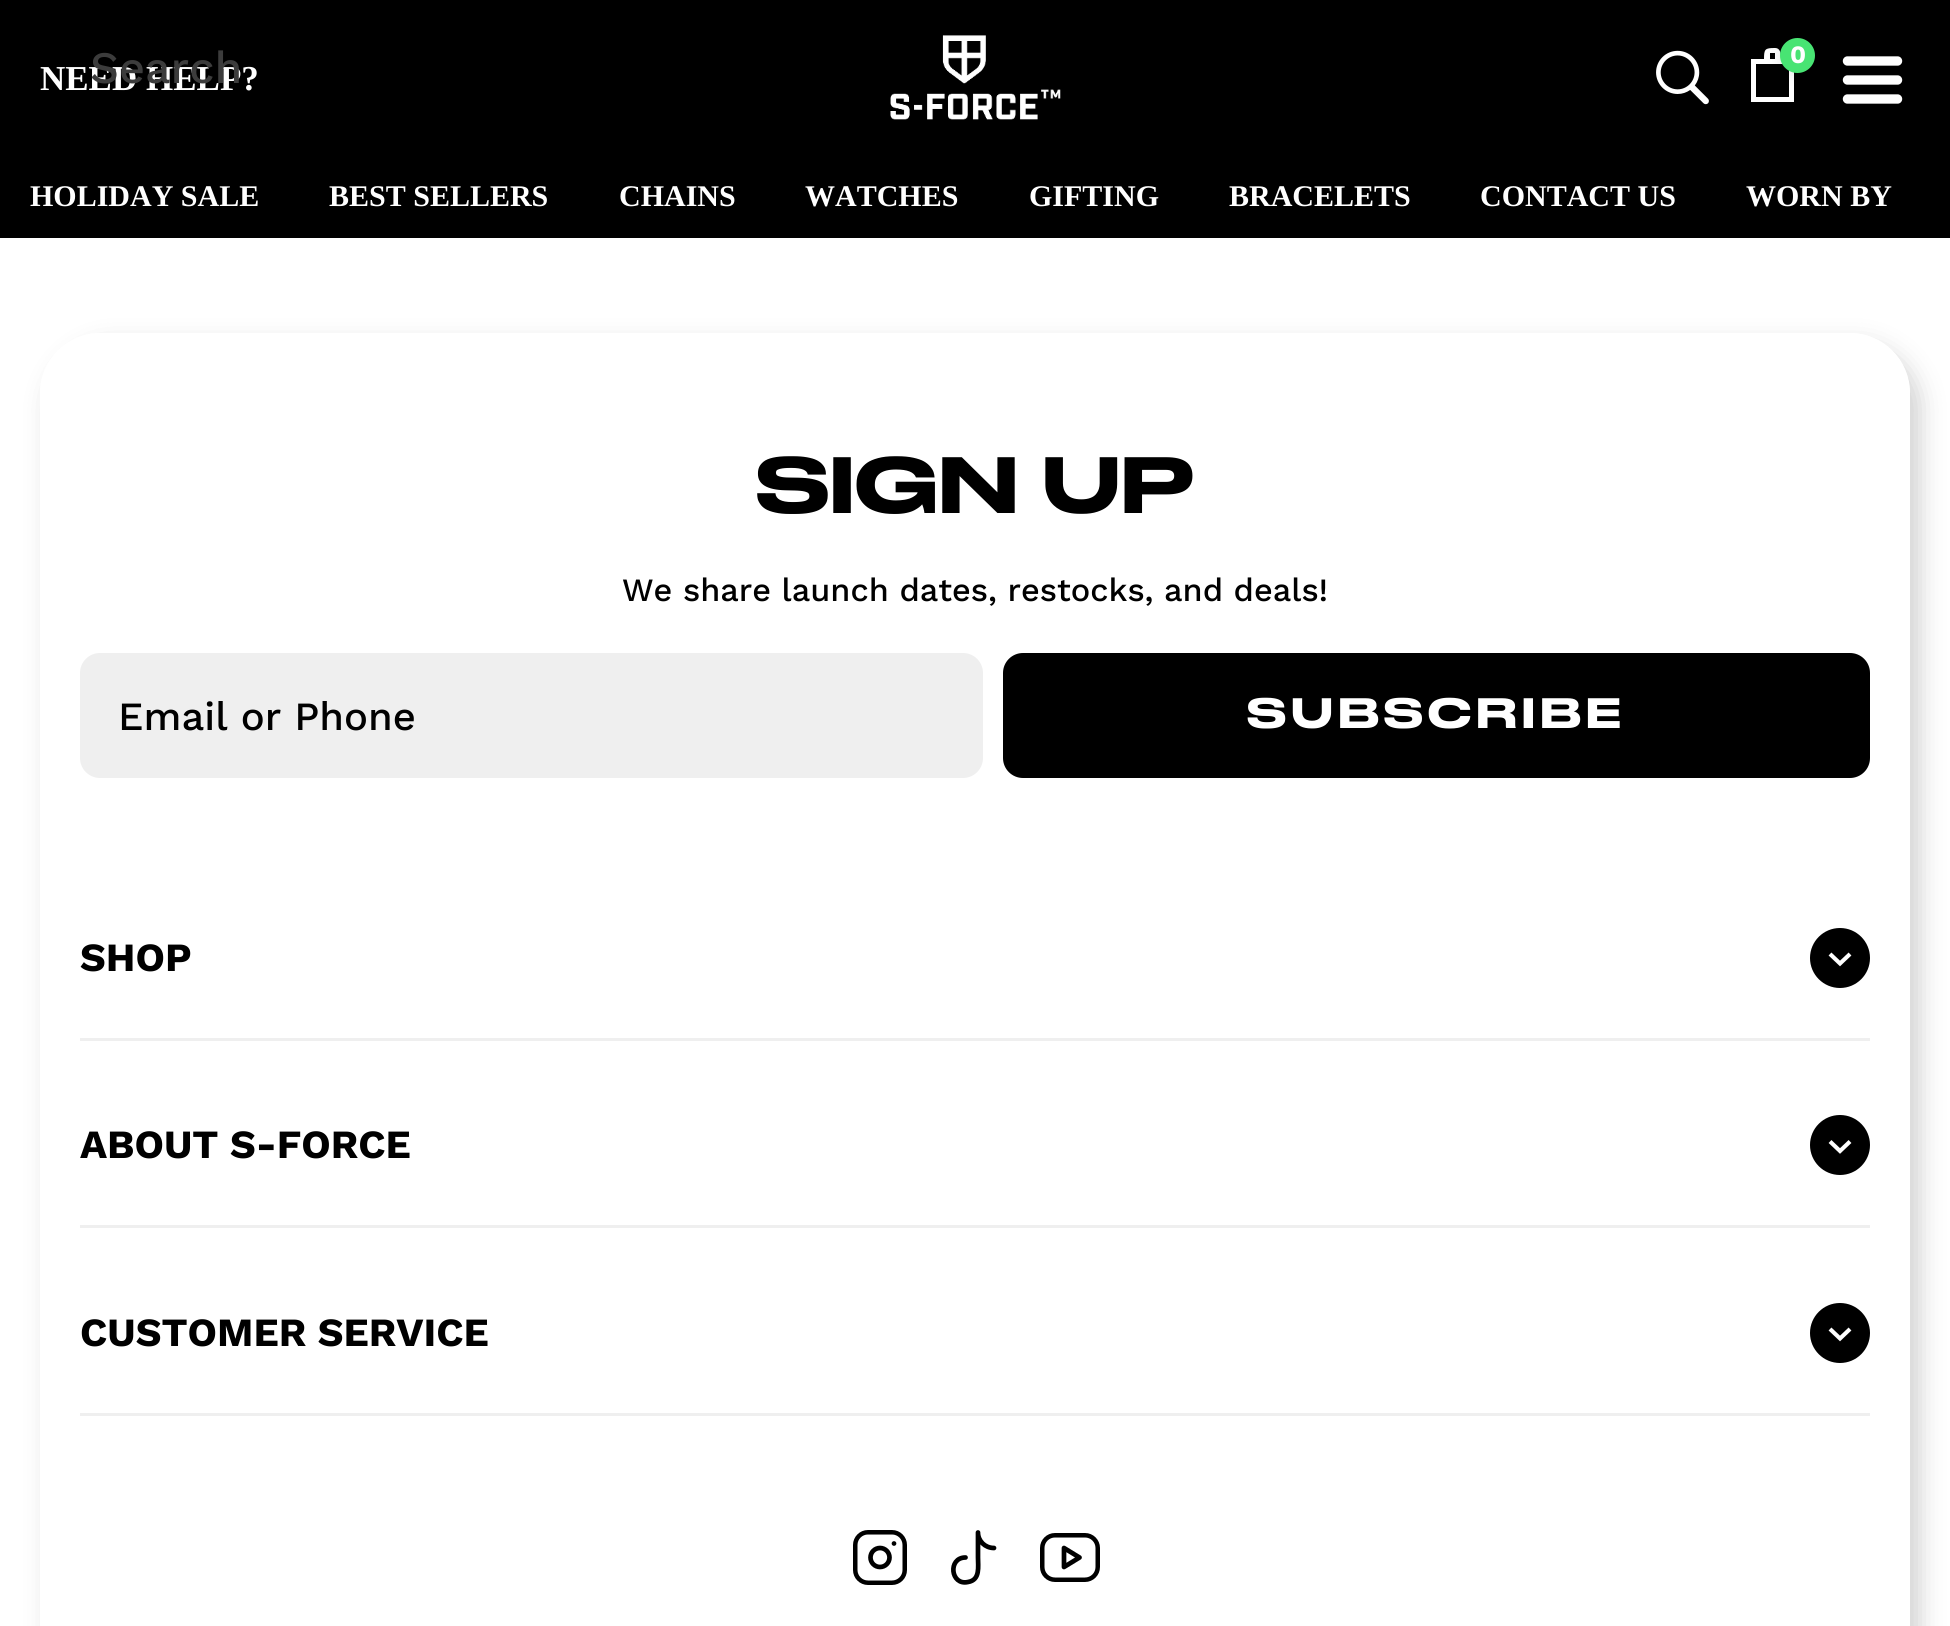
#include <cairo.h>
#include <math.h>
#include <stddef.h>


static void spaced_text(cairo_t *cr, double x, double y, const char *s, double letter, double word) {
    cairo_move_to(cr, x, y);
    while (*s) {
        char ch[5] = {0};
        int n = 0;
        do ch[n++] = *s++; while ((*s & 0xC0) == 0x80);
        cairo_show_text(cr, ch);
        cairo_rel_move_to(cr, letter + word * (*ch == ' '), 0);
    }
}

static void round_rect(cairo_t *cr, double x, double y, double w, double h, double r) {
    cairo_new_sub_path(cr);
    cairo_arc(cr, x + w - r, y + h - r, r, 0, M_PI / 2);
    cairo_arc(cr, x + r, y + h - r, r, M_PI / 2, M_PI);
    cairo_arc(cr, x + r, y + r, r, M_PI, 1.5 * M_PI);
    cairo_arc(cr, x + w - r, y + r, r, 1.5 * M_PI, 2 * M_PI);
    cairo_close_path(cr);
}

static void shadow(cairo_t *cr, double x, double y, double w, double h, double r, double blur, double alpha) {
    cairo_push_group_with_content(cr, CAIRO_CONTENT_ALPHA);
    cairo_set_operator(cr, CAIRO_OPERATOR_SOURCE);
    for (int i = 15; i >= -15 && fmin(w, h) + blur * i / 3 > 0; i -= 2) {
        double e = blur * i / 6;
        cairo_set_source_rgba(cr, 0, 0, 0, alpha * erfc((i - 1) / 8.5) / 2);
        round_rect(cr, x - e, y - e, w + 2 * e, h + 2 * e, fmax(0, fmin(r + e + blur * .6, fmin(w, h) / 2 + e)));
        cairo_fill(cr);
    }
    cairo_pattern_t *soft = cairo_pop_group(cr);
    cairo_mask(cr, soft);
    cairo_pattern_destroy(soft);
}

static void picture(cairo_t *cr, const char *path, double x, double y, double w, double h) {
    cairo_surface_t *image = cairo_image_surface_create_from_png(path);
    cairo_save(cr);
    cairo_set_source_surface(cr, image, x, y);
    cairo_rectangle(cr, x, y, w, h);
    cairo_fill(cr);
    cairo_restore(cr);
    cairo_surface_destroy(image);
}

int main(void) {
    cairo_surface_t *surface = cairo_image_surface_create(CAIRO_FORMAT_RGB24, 1950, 1626);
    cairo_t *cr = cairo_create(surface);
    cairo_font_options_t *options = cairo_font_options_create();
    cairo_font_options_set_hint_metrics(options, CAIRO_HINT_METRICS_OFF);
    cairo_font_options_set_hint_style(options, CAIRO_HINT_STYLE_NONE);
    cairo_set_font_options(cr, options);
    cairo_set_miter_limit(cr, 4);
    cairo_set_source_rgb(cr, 1, 1, 1);
    cairo_paint(cr);
    cairo_set_source_rgb(cr, 0, 0, 0);
    cairo_rectangle(cr, 0, 0, 1950, 238);
    cairo_fill(cr);
    picture(cr, "img1.png", 890, 35, 171, 85);
    picture(cr, "img2.png", 1656, 50, 53, 55);
    cairo_set_source_rgb(cr, 1, 1, 1);
    cairo_new_path(cr);
    cairo_move_to(cr, 1775, 48);
    cairo_curve_to(cr, 1765, 48, 1764, 49, 1764, 59);
    cairo_line_to(cr, 1751, 59);
    cairo_line_to(cr, 1751, 102);
    cairo_line_to(cr, 1794, 102);
    cairo_line_to(cr, 1794, 59);
    cairo_line_to(cr, 1781, 59);
    cairo_curve_to(cr, 1781, 55, 1781, 48, 1775, 48);
    cairo_close_path(cr);
    cairo_move_to(cr, 1789, 64);
    cairo_line_to(cr, 1789, 97);
    cairo_line_to(cr, 1756, 97);
    cairo_line_to(cr, 1756, 64);
    cairo_close_path(cr);
    cairo_move_to(cr, 1770, 59);
    cairo_line_to(cr, 1770, 53);
    cairo_line_to(cr, 1775, 53);
    cairo_line_to(cr, 1775, 59);
    cairo_close_path(cr);
    cairo_fill(cr);
    cairo_set_source_rgb(cr, 0, 0, 0);
    shadow(cr, 1780, 38, 35, 35, 17.5, 7.5, 0.1);
    cairo_set_source_rgb(cr, 0.282, 0.894, 0.451);
    cairo_arc(cr, 1797.5, 55.5, 17.5, 0, 2 * M_PI);
    cairo_fill(cr);
    cairo_select_font_face(cr, "Work Sans", CAIRO_FONT_SLANT_NORMAL, CAIRO_FONT_WEIGHT_BOLD);
    cairo_set_font_size(cr, 25);
    cairo_set_source_rgb(cr, 1, 1, 1);
    spaced_text(cr, 1790, 63, "0", -1, 0);
    cairo_new_path(cr);
    cairo_move_to(cr, 1847.5, 61);
    cairo_line_to(cr, 1897.5, 61);
    cairo_move_to(cr, 1847.5, 80);
    cairo_line_to(cr, 1897.5, 80);
    cairo_move_to(cr, 1847.5, 99);
    cairo_line_to(cr, 1897.5, 99);
    cairo_set_line_width(cr, 9.4);
    cairo_set_line_cap(cr, CAIRO_LINE_CAP_ROUND);
    cairo_set_line_join(cr, CAIRO_LINE_JOIN_ROUND);
    cairo_stroke(cr);
    cairo_select_font_face(cr, "Liberation Serif", CAIRO_FONT_SLANT_NORMAL, CAIRO_FONT_WEIGHT_BOLD);
    cairo_set_font_size(cr, 35);
    cairo_move_to(cr, 40, 90);
    cairo_show_text(cr, "NEED HELP?");
    cairo_set_font_size(cr, 30);
    cairo_move_to(cr, 30, 206);
    cairo_show_text(cr, "HOLIDAY SALE");
    cairo_move_to(cr, 329, 206);
    cairo_show_text(cr, "BEST SELLERS");
    cairo_move_to(cr, 619, 206);
    cairo_show_text(cr, "CHAINS");
    cairo_move_to(cr, 805, 206);
    cairo_show_text(cr, "WATCHES");
    cairo_move_to(cr, 1029, 206);
    cairo_show_text(cr, "GIFTING");
    cairo_move_to(cr, 1229, 206);
    cairo_show_text(cr, "BRACELETS");
    cairo_move_to(cr, 1480, 206);
    cairo_show_text(cr, "CONTACT US");
    cairo_move_to(cr, 1746, 206);
    cairo_show_text(cr, "WORN BY");
    cairo_select_font_face(cr, "Work Sans Medium", CAIRO_FONT_SLANT_NORMAL, CAIRO_FONT_WEIGHT_NORMAL);
    cairo_set_font_size(cr, 45);
    cairo_set_source_rgb(cr, 0.235, 0.235, 0.235);
    cairo_move_to(cr, 90, 83);
    cairo_show_text(cr, "Search");
    cairo_save(cr);
    cairo_set_fill_rule(cr, CAIRO_FILL_RULE_EVEN_ODD);
    cairo_new_path(cr);
    cairo_move_to(cr, 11, 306);
    cairo_line_to(cr, 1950, 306);
    cairo_line_to(cr, 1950, 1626);
    cairo_line_to(cr, 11, 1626);
    cairo_close_path(cr);
    cairo_move_to(cr, 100, 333);
    cairo_line_to(cr, 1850, 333);
    cairo_curve_to(cr, 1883, 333, 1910, 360, 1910, 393);
    cairo_line_to(cr, 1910, 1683);
    cairo_curve_to(cr, 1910, 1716, 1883, 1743, 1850, 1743);
    cairo_line_to(cr, 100, 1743);
    cairo_curve_to(cr, 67, 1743, 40, 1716, 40, 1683);
    cairo_line_to(cr, 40, 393);
    cairo_curve_to(cr, 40, 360, 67, 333, 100, 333);
    cairo_close_path(cr);
    cairo_clip(cr);
    cairo_set_source_rgb(cr, 0, 0, 0);
    shadow(cr, 50, 345, 1870, 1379, 60, 12.5, 0.18);
    cairo_restore(cr);
    cairo_select_font_face(cr, "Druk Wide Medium", CAIRO_FONT_SLANT_NORMAL, CAIRO_FONT_WEIGHT_NORMAL);
    cairo_set_font_size(cr, 75);
    cairo_set_source_rgb(cr, 0, 0, 0);
    cairo_move_to(cr, 756, 513);
    cairo_show_text(cr, "SIGN UP");
    cairo_select_font_face(cr, "Work Sans Medium", CAIRO_FONT_SLANT_NORMAL, CAIRO_FONT_WEIGHT_NORMAL);
    cairo_set_font_size(cr, 32.5);
    cairo_move_to(cr, 622, 601);
    cairo_show_text(cr, "We share launch dates, restocks, and deals!");
    cairo_set_source_rgb(cr, 0.937, 0.937, 0.937);
    round_rect(cr, 80, 653, 903, 125, 20);
    cairo_fill(cr);
    cairo_set_font_size(cr, 40);
    cairo_set_source_rgb(cr, 0, 0, 0);
    cairo_move_to(cr, 118, 730);
    cairo_show_text(cr, "Email or Phone");
    round_rect(cr, 1004.5, 654.5, 864, 122, 18.5);
    cairo_fill_preserve(cr);
    cairo_set_line_width(cr, 3);
    cairo_set_line_cap(cr, CAIRO_LINE_CAP_BUTT);
    cairo_set_line_join(cr, CAIRO_LINE_JOIN_MITER);
    cairo_stroke(cr);
    cairo_select_font_face(cr, "Druk Wide Medium", CAIRO_FONT_SLANT_NORMAL, CAIRO_FONT_WEIGHT_NORMAL);
    cairo_set_source_rgb(cr, 1, 1, 1);
    spaced_text(cr, 1247, 728, "SUBSCRIBE", 5, 0);
    cairo_set_source_rgb(cr, 0.937, 0.937, 0.937);
    cairo_rectangle(cr, 80, 1038, 1790, 3);
    cairo_fill(cr);
    cairo_select_font_face(cr, "Work Sans", CAIRO_FONT_SLANT_NORMAL, CAIRO_FONT_WEIGHT_BOLD);
    cairo_set_source_rgb(cr, 0, 0, 0);
    cairo_move_to(cr, 80, 971);
    cairo_show_text(cr, "SHOP");
    cairo_new_path(cr);
    cairo_arc(cr, 1840, 958, 30, 0, 2 * M_PI);
    cairo_fill(cr);
    cairo_new_path(cr);
    cairo_move_to(cr, 1830, 954);
    cairo_line_to(cr, 1840, 963.5);
    cairo_line_to(cr, 1850, 954);
    cairo_set_source_rgb(cr, 1, 1, 1);
    cairo_set_line_width(cr, 4.1);
    cairo_stroke(cr);
    cairo_set_source_rgb(cr, 0.937, 0.937, 0.937);
    cairo_rectangle(cr, 80, 1225, 1790, 3);
    cairo_fill(cr);
    cairo_set_source_rgb(cr, 0, 0, 0);
    cairo_move_to(cr, 80, 1158);
    cairo_show_text(cr, "ABOUT S-FORCE");
    cairo_new_path(cr);
    cairo_arc(cr, 1840, 1145, 30, 0, 2 * M_PI);
    cairo_fill(cr);
    cairo_new_path(cr);
    cairo_move_to(cr, 1830, 1141.5);
    cairo_line_to(cr, 1840, 1151);
    cairo_line_to(cr, 1850, 1141.5);
    cairo_set_source_rgb(cr, 1, 1, 1);
    cairo_stroke(cr);
    cairo_set_source_rgb(cr, 0.937, 0.937, 0.937);
    cairo_rectangle(cr, 80, 1413, 1790, 3);
    cairo_fill(cr);
    cairo_set_source_rgb(cr, 0, 0, 0);
    cairo_move_to(cr, 80, 1346);
    cairo_show_text(cr, "CUSTOMER SERVICE");
    cairo_new_path(cr);
    cairo_arc(cr, 1840, 1333, 30, 0, 2 * M_PI);
    cairo_fill(cr);
    cairo_new_path(cr);
    cairo_move_to(cr, 1830, 1329);
    cairo_line_to(cr, 1840, 1338.5);
    cairo_line_to(cr, 1850, 1329);
    cairo_set_source_rgb(cr, 1, 1, 1);
    cairo_stroke(cr);
    round_rect(cr, 855.25, 1532.25, 49.5, 50.5, 12.75);
    cairo_set_source_rgb(cr, 0, 0, 0);
    cairo_set_line_width(cr, 4.5);
    cairo_stroke(cr);
    cairo_arc(cr, 880, 1557.5, 9.5, 0, 2 * M_PI);
    cairo_set_line_width(cr, 4.7);
    cairo_stroke(cr);
    cairo_new_path(cr);
    cairo_move_to(cr, 894, 1543.5);
    cairo_line_to(cr, 894, 1543.5);
    cairo_set_line_cap(cr, CAIRO_LINE_CAP_ROUND);
    cairo_set_line_join(cr, CAIRO_LINE_JOIN_ROUND);
    cairo_stroke(cr);
    cairo_new_path(cr);
    cairo_move_to(cr, 965.5, 1557.5);
    cairo_curve_to(cr, 947.5, 1557.5, 950.5, 1586, 968, 1582);
    cairo_curve_to(cr, 980.5, 1580, 978, 1566.5, 978, 1557.5);
    cairo_line_to(cr, 978, 1532.5);
    cairo_curve_to(cr, 978, 1541, 985, 1548, 994, 1548);
    cairo_stroke(cr);
    round_rect(cr, 1042.25, 1535.25, 55.5, 44.5, 12.75);
    cairo_set_line_width(cr, 4.5);
    cairo_set_line_cap(cr, CAIRO_LINE_CAP_BUTT);
    cairo_set_line_join(cr, CAIRO_LINE_JOIN_MITER);
    cairo_stroke(cr);
    cairo_new_path(cr);
    cairo_move_to(cr, 1064, 1548);
    cairo_line_to(cr, 1079.5, 1557.5);
    cairo_line_to(cr, 1064, 1567);
    cairo_close_path(cr);
    cairo_set_line_width(cr, 4.7);
    cairo_set_line_cap(cr, CAIRO_LINE_CAP_ROUND);
    cairo_set_line_join(cr, CAIRO_LINE_JOIN_ROUND);
    cairo_stroke(cr);
    cairo_surface_write_to_png(surface, "page.png");
    cairo_font_options_destroy(options);
    cairo_destroy(cr);
    cairo_surface_destroy(surface);
    return 0;
}
